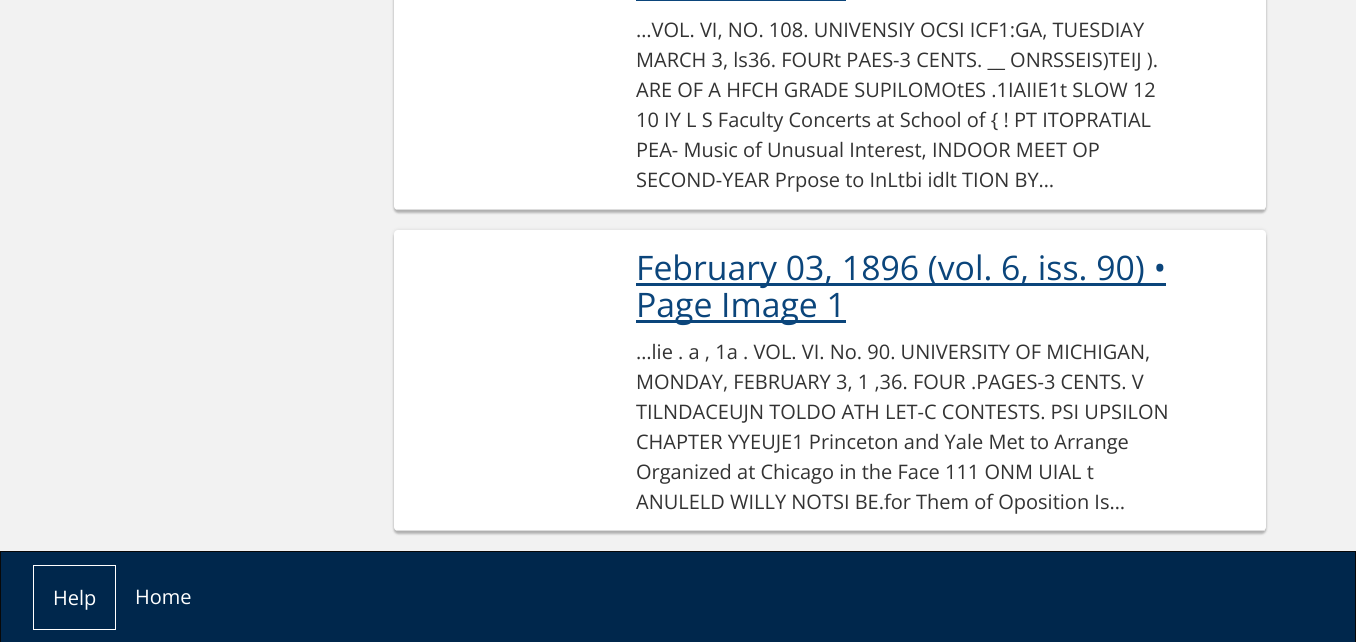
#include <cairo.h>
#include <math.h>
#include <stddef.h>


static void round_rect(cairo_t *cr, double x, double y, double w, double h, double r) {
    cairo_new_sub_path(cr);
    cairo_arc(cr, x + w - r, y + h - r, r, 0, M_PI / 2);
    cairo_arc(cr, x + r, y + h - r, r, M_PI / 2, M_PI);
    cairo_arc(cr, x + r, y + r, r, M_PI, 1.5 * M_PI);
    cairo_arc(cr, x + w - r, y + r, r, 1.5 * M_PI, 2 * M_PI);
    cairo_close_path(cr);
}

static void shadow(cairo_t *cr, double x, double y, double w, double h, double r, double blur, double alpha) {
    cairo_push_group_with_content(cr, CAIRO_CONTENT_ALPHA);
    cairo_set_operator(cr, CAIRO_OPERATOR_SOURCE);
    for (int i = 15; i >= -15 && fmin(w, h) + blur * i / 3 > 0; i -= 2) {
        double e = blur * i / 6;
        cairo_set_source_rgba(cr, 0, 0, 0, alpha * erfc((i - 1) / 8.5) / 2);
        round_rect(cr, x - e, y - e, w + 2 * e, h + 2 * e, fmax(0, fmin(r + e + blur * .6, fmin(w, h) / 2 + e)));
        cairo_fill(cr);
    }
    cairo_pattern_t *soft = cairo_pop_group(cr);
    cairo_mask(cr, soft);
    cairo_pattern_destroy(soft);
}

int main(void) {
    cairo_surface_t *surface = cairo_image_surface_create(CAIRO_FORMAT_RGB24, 1356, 642);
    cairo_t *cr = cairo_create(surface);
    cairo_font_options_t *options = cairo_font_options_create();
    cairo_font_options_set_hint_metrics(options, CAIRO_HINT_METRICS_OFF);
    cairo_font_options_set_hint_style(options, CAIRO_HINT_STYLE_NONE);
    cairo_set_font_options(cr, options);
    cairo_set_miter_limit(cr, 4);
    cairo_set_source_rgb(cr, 0.949, 0.949, 0.949);
    cairo_paint(cr);
    cairo_set_source_rgb(cr, 0, 0, 0);
    shadow(cr, 394, -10, 872, 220, 4, 2, 0.12);
    shadow(cr, 394, -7, 872, 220, 4, 1, 0.24);
    cairo_set_source_rgb(cr, 1, 1, 1);
    round_rect(cr, 394, -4, 872, 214, 4);
    cairo_fill(cr);
    cairo_set_source_rgb(cr, 0.867, 0.867, 0.867);
    cairo_rectangle(cr, 396, 209, 869, 1);
    cairo_fill(cr);
    cairo_set_source_rgb(cr, 0.043, 0.271, 0.482);
    cairo_rectangle(cr, 636, 0, 210, 1);
    cairo_fill(cr);
    cairo_select_font_face(cr, "Open Sans", CAIRO_FONT_SLANT_NORMAL, CAIRO_FONT_WEIGHT_NORMAL);
    cairo_set_font_size(cr, 20);
    cairo_set_source_rgb(cr, 0.2, 0.2, 0.2);
    cairo_move_to(cr, 636, 37);
    cairo_show_text(cr, "…VOL. VI, NO. 108. UNIVENSIY OCSI ICF1:GA, TUESDIAY");
    cairo_move_to(cr, 636, 67);
    cairo_show_text(cr, "MARCH 3, ls36. FOURt PAES-3 CENTS. __ ONRSSEIS)TEIJ ).");
    cairo_move_to(cr, 636, 97);
    cairo_show_text(cr, "ARE OF A HFCH GRADE SUPILOMOtES .1IAIIE1t SLOW 12");
    cairo_move_to(cr, 636, 127);
    cairo_show_text(cr, "10 IY L S Faculty Concerts at School of { ! PT ITOPRATIAL");
    cairo_move_to(cr, 636, 157);
    cairo_show_text(cr, "PEA- Music of Unusual Interest, INDOOR MEET OP");
    cairo_move_to(cr, 636, 187);
    cairo_show_text(cr, "SECOND-YEAR Prpose to InLtbi idlt TION BY…");
    cairo_set_source_rgb(cr, 0, 0, 0);
    shadow(cr, 394, 230, 872, 301, 4, 2, 0.12);
    shadow(cr, 394, 233, 872, 301, 4, 1, 0.24);
    cairo_set_source_rgb(cr, 1, 1, 1);
    round_rect(cr, 394, 230, 872, 301, 4);
    cairo_fill(cr);
    cairo_set_source_rgb(cr, 0.867, 0.867, 0.867);
    cairo_rectangle(cr, 396, 530, 869, 1);
    cairo_fill(cr);
    cairo_set_source_rgb(cr, 0.043, 0.271, 0.482);
    cairo_rectangle(cr, 636, 283, 530, 3);
    cairo_fill(cr);
    cairo_set_font_size(cr, 33.75);
    cairo_move_to(cr, 636, 280);
    cairo_show_text(cr, "February 03, 1896 (vol. 6, iss. 90) •");
    cairo_rectangle(cr, 636, 320, 210, 3);
    cairo_fill(cr);
    cairo_move_to(cr, 636, 317);
    cairo_show_text(cr, "Page Image 1");
    cairo_set_font_size(cr, 20);
    cairo_set_source_rgb(cr, 0.2, 0.2, 0.2);
    cairo_move_to(cr, 636, 359);
    cairo_show_text(cr, "…lie . a , 1a . VOL. VI. No. 90. UNIVERSITY OF MICHIGAN,");
    cairo_move_to(cr, 636, 389);
    cairo_show_text(cr, "MONDAY, FEBRUARY 3, 1 ,36. FOUR .PAGES-3 CENTS. V");
    cairo_move_to(cr, 636, 419);
    cairo_show_text(cr, "TILNDACEUJN TOLDO ATH LET-C CONTESTS. PSI UPSILON");
    cairo_move_to(cr, 636, 449);
    cairo_show_text(cr, "CHAPTER YYEUJE1 Princeton and Yale Met to Arrange");
    cairo_move_to(cr, 636, 479);
    cairo_show_text(cr, "Organized at Chicago in the Face 111 ONM UIAL t");
    cairo_move_to(cr, 636, 509);
    cairo_show_text(cr, "ANULELD WILLY NOTSI BE.for Them of Oposition Is…");
    cairo_set_source_rgb(cr, 0, 0.153, 0.298);
    cairo_rectangle(cr, 0.5, 551.5, 1355, 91);
    cairo_fill_preserve(cr);
    cairo_set_source_rgb(cr, 0.035, 0.035, 0.035);
    cairo_set_line_width(cr, 1);
    cairo_stroke(cr);
    cairo_rectangle(cr, 33.5, 565.5, 82, 64);
    cairo_set_source_rgb(cr, 1, 1, 1);
    cairo_stroke(cr);
    cairo_move_to(cr, 53, 605);
    cairo_show_text(cr, "Help");
    cairo_move_to(cr, 135, 604);
    cairo_show_text(cr, "Home");
    cairo_surface_write_to_png(surface, "page.png");
    cairo_font_options_destroy(options);
    cairo_destroy(cr);
    cairo_surface_destroy(surface);
    return 0;
}
